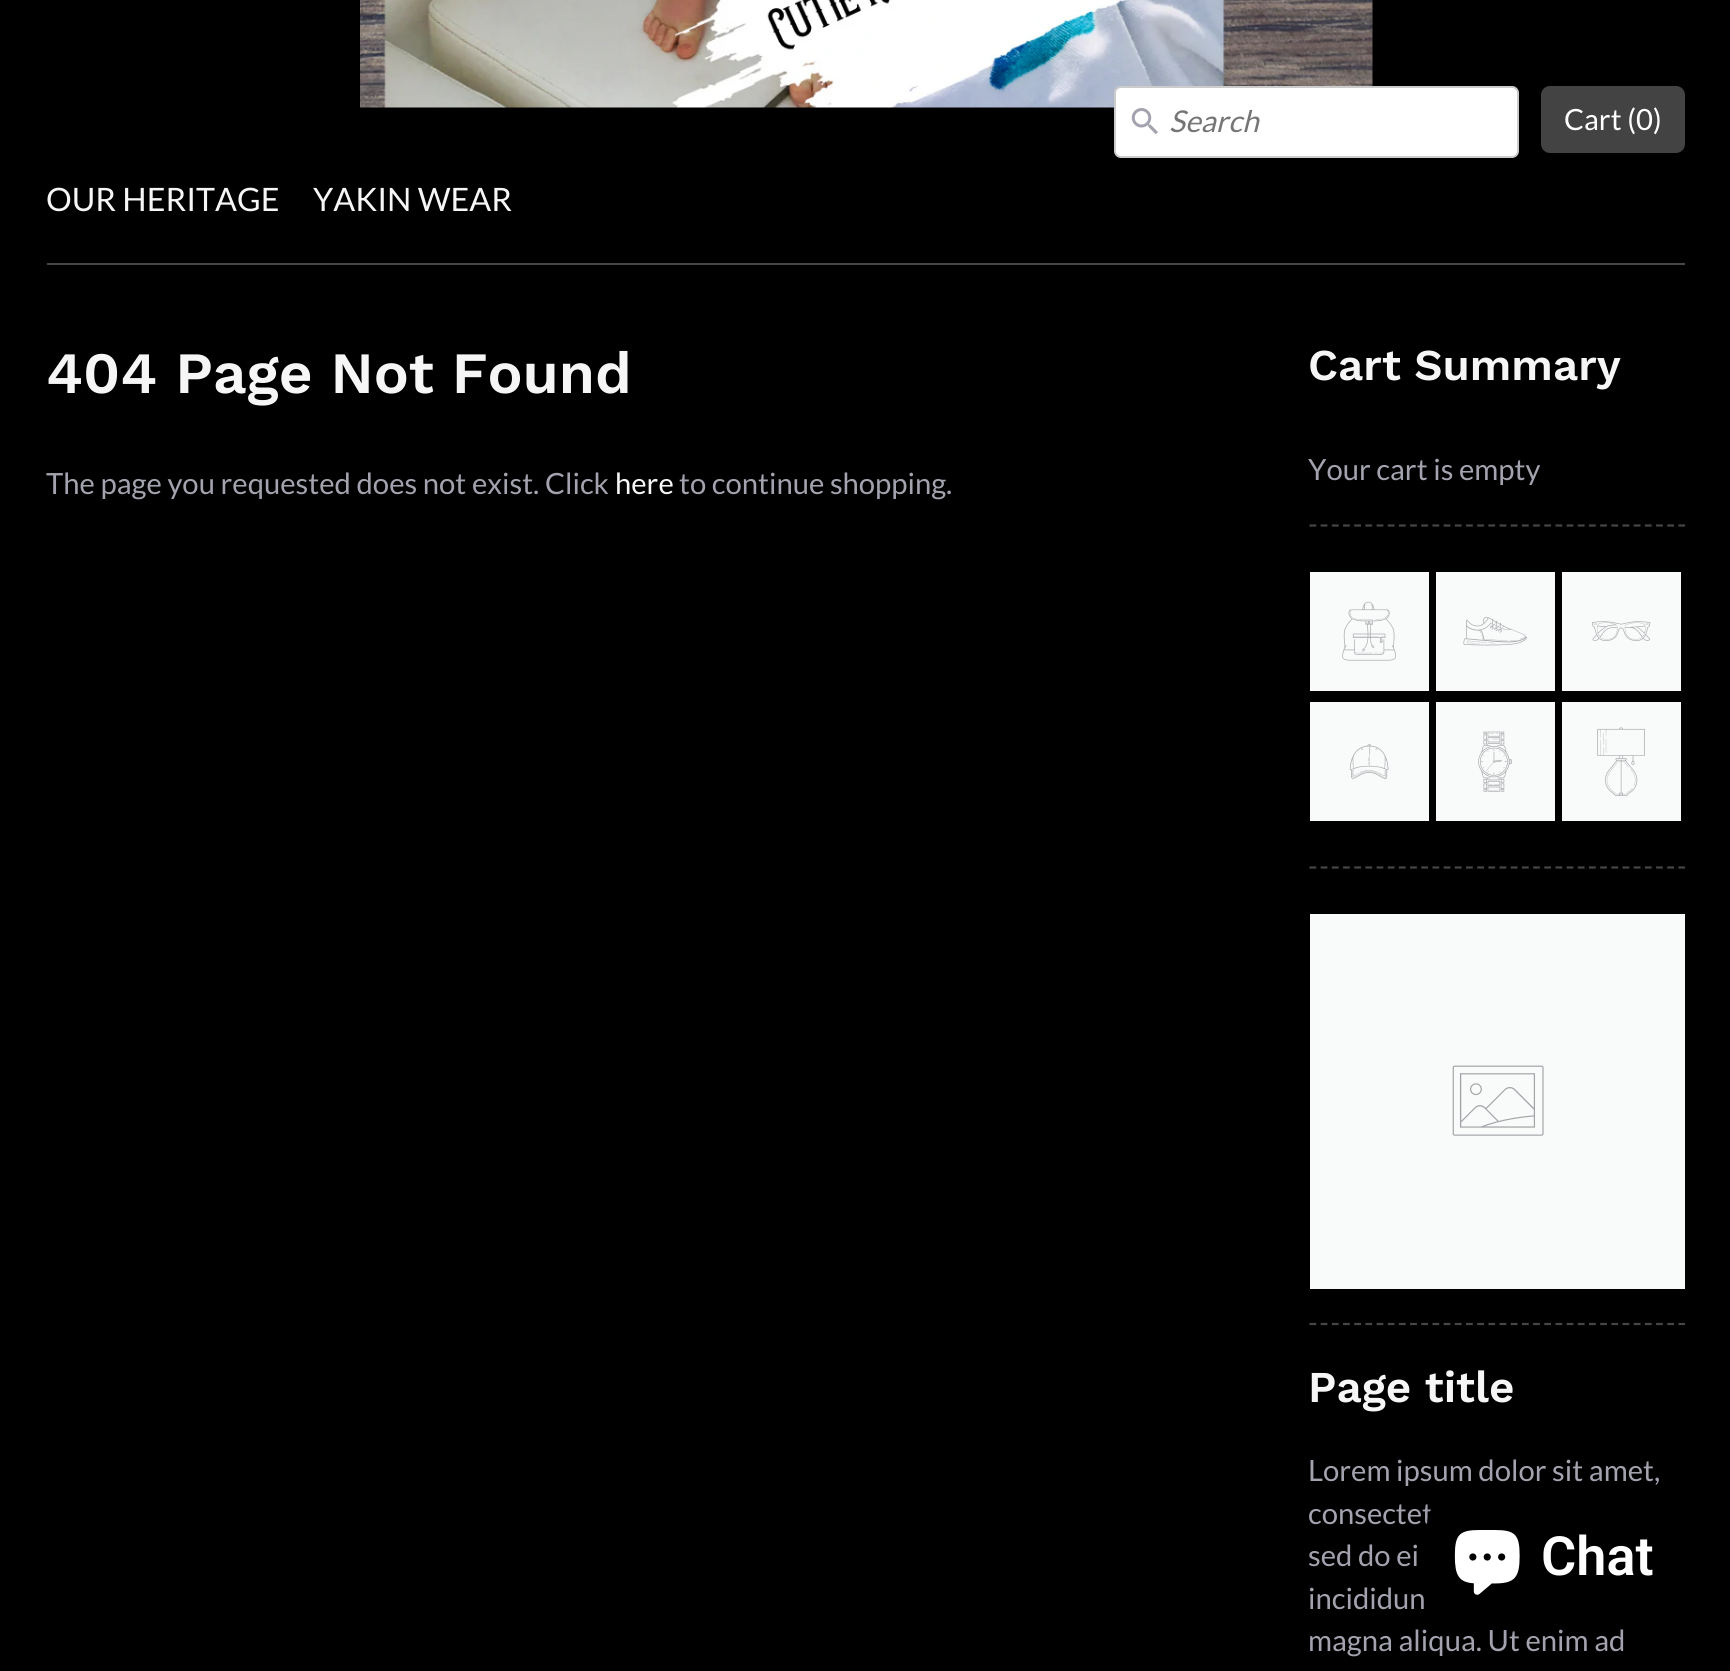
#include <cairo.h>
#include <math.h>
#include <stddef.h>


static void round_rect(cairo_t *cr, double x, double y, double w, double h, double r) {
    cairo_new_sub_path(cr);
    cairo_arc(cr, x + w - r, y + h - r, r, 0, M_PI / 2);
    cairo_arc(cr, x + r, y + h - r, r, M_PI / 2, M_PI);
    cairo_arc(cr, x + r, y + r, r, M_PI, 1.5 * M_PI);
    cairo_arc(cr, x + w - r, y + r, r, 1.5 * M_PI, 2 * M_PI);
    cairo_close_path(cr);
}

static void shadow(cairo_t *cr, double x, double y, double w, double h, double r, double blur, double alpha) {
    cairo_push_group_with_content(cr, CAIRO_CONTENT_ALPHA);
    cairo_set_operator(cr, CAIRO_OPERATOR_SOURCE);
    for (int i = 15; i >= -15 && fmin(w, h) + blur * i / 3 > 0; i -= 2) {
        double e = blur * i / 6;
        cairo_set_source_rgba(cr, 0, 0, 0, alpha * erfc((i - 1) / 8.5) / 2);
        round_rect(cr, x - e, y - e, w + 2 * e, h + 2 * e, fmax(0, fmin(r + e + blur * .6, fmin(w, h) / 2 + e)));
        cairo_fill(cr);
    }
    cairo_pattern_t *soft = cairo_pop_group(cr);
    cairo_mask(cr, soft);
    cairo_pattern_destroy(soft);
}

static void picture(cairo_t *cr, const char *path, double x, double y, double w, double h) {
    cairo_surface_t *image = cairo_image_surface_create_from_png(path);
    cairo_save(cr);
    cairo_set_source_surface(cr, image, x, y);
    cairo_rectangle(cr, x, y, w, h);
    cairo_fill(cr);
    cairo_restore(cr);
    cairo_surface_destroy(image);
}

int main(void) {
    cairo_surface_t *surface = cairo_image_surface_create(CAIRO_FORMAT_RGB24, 1730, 1671);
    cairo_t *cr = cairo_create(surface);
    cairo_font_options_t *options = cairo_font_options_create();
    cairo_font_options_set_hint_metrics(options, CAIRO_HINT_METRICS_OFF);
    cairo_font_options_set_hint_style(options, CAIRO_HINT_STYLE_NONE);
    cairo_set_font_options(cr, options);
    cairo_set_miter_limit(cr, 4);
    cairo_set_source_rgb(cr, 0, 0, 0);
    cairo_paint(cr);
    picture(cr, "img1.png", 360, 0, 1013, 108);
    cairo_set_source_rgb(cr, 1, 1, 1);
    round_rect(cr, 1115, 87, 403, 70, 6);
    cairo_fill_preserve(cr);
    cairo_set_source_rgb(cr, 0.8, 0.8, 0.8);
    cairo_stroke(cr);
    picture(cr, "img2.png", 1131, 108, 27, 27);
    cairo_select_font_face(cr, "Lato", CAIRO_FONT_SLANT_ITALIC, CAIRO_FONT_WEIGHT_NORMAL);
    cairo_set_font_size(cr, 30);
    cairo_set_source_rgb(cr, 0.459, 0.459, 0.459);
    cairo_move_to(cr, 1169, 132);
    cairo_show_text(cr, "Search");
    cairo_set_source_rgb(cr, 0.263, 0.263, 0.263);
    round_rect(cr, 1541, 86, 144, 67, 9);
    cairo_fill(cr);
    cairo_select_font_face(cr, "Lato", CAIRO_FONT_SLANT_NORMAL, CAIRO_FONT_WEIGHT_NORMAL);
    cairo_set_font_size(cr, 29.25);
    cairo_set_source_rgb(cr, 1, 1, 1);
    cairo_move_to(cr, 1564, 130);
    cairo_show_text(cr, "Cart (0)");
    cairo_set_source_rgb(cr, 0.275, 0.275, 0.275);
    cairo_rectangle(cr, 47, 263, 1638, 2);
    cairo_fill(cr);
    cairo_set_font_size(cr, 32.25);
    cairo_set_source_rgb(cr, 0.961, 0.961, 0.961);
    cairo_move_to(cr, 46, 211);
    cairo_show_text(cr, "OUR HERITAGE");
    cairo_move_to(cr, 313, 211);
    cairo_show_text(cr, "YAKIN WEAR");
    cairo_select_font_face(cr, "Work Sans SemiBold", CAIRO_FONT_SLANT_NORMAL, CAIRO_FONT_WEIGHT_NORMAL);
    cairo_set_font_size(cr, 58.5);
    cairo_move_to(cr, 46, 393);
    cairo_show_text(cr, "404 Page Not Found");
    cairo_select_font_face(cr, "Lato", CAIRO_FONT_SLANT_NORMAL, CAIRO_FONT_WEIGHT_NORMAL);
    cairo_set_font_size(cr, 29.25);
    cairo_set_source_rgb(cr, 0.639, 0.639, 0.686);
    cairo_move_to(cr, 46, 494);
    cairo_show_text(cr, "The page you requested does not exist. Click");
    cairo_set_source_rgb(cr, 0.961, 0.961, 0.961);
    cairo_move_to(cr, 615, 494);
    cairo_show_text(cr, "here");
    cairo_set_source_rgb(cr, 0.639, 0.639, 0.686);
    cairo_move_to(cr, 679, 494);
    cairo_show_text(cr, "to continue shopping.");
    cairo_new_path(cr);
    cairo_move_to(cr, 1309.5, 525.5);
    cairo_line_to(cr, 1685, 525.5);
    cairo_set_source_rgb(cr, 0.275, 0.275, 0.275);
    cairo_set_line_width(cr, 2.2);
    cairo_set_dash(cr, (double[]){6.75, 4.43}, 2, 0);
    cairo_stroke(cr);
    cairo_select_font_face(cr, "Work Sans SemiBold", CAIRO_FONT_SLANT_NORMAL, CAIRO_FONT_WEIGHT_NORMAL);
    cairo_set_font_size(cr, 44);
    cairo_set_source_rgb(cr, 0.961, 0.961, 0.961);
    cairo_move_to(cr, 1308, 380);
    cairo_show_text(cr, "Cart Summary");
    cairo_select_font_face(cr, "Lato", CAIRO_FONT_SLANT_NORMAL, CAIRO_FONT_WEIGHT_NORMAL);
    cairo_set_font_size(cr, 29.25);
    cairo_set_source_rgb(cr, 0.639, 0.639, 0.686);
    cairo_move_to(cr, 1308, 480);
    cairo_show_text(cr, "Your cart is empty");
    cairo_new_path(cr);
    cairo_move_to(cr, 1309.5, 867.5);
    cairo_line_to(cr, 1685, 867.5);
    cairo_set_source_rgb(cr, 0.275, 0.275, 0.275);
    cairo_stroke(cr);
    cairo_set_source_rgb(cr, 0.976, 0.98, 0.98);
    cairo_rectangle(cr, 1310, 572, 119, 119);
    cairo_fill(cr);
    picture(cr, "img3.png", 1342, 601, 54, 60);
    cairo_rectangle(cr, 1436, 572, 119, 119);
    cairo_fill(cr);
    picture(cr, "img4.png", 1463, 616, 64, 30);
    cairo_rectangle(cr, 1562, 572, 119, 119);
    cairo_fill(cr);
    picture(cr, "img5.png", 1591, 621, 60, 20);
    cairo_rectangle(cr, 1310, 702, 119, 119);
    cairo_fill(cr);
    picture(cr, "img6.png", 1349, 744, 40, 35);
    cairo_rectangle(cr, 1436, 702, 119, 119);
    cairo_fill(cr);
    picture(cr, "img7.png", 1478, 731, 34, 61);
    cairo_rectangle(cr, 1562, 702, 119, 119);
    cairo_fill(cr);
    picture(cr, "img8.png", 1597, 727, 48, 69);
    cairo_new_path(cr);
    cairo_move_to(cr, 1309.5, 1324);
    cairo_line_to(cr, 1685, 1324);
    cairo_set_source_rgb(cr, 0.275, 0.275, 0.275);
    cairo_stroke(cr);
    cairo_set_source_rgb(cr, 0.976, 0.98, 0.98);
    cairo_rectangle(cr, 1310, 914, 375, 375);
    cairo_fill(cr);
    picture(cr, "img9.png", 1452, 1065, 92, 71);
    cairo_select_font_face(cr, "Work Sans SemiBold", CAIRO_FONT_SLANT_NORMAL, CAIRO_FONT_WEIGHT_NORMAL);
    cairo_set_font_size(cr, 44);
    cairo_set_source_rgb(cr, 0.961, 0.961, 0.961);
    cairo_move_to(cr, 1308, 1402);
    cairo_show_text(cr, "Page title");
    cairo_select_font_face(cr, "Lato", CAIRO_FONT_SLANT_NORMAL, CAIRO_FONT_WEIGHT_NORMAL);
    cairo_set_font_size(cr, 29.25);
    cairo_set_source_rgb(cr, 0.639, 0.639, 0.686);
    cairo_move_to(cr, 1308, 1481);
    cairo_show_text(cr, "Lorem ipsum dolor sit amet,");
    cairo_move_to(cr, 1308, 1524);
    cairo_show_text(cr, "consectet");
    cairo_move_to(cr, 1308, 1566);
    cairo_show_text(cr, "sed do ei");
    cairo_move_to(cr, 1308, 1609);
    cairo_show_text(cr, "incididun");
    cairo_move_to(cr, 1308, 1651);
    cairo_show_text(cr, "magna aliqua. Ut enim ad");
    cairo_set_source_rgb(cr, 0, 0, 0);
    shadow(cr, 1427, 1490, 254, 135, 36, 5.5, 0.15);
    cairo_set_source_rgb(cr, 0, 0, 0);
    round_rect(cr, 1427, 1490, 254, 135, 36);
    cairo_fill(cr);
    picture(cr, "img10.png", 1454, 1530, 66, 65);
    cairo_select_font_face(cr, "Roboto SemiBold", CAIRO_FONT_SLANT_NORMAL, CAIRO_FONT_WEIGHT_NORMAL);
    cairo_set_font_size(cr, 54);
    cairo_set_source_rgb(cr, 1, 1, 1);
    cairo_move_to(cr, 1541, 1575);
    cairo_show_text(cr, "Chat");
    cairo_surface_write_to_png(surface, "page.png");
    cairo_font_options_destroy(options);
    cairo_destroy(cr);
    cairo_surface_destroy(surface);
    return 0;
}
